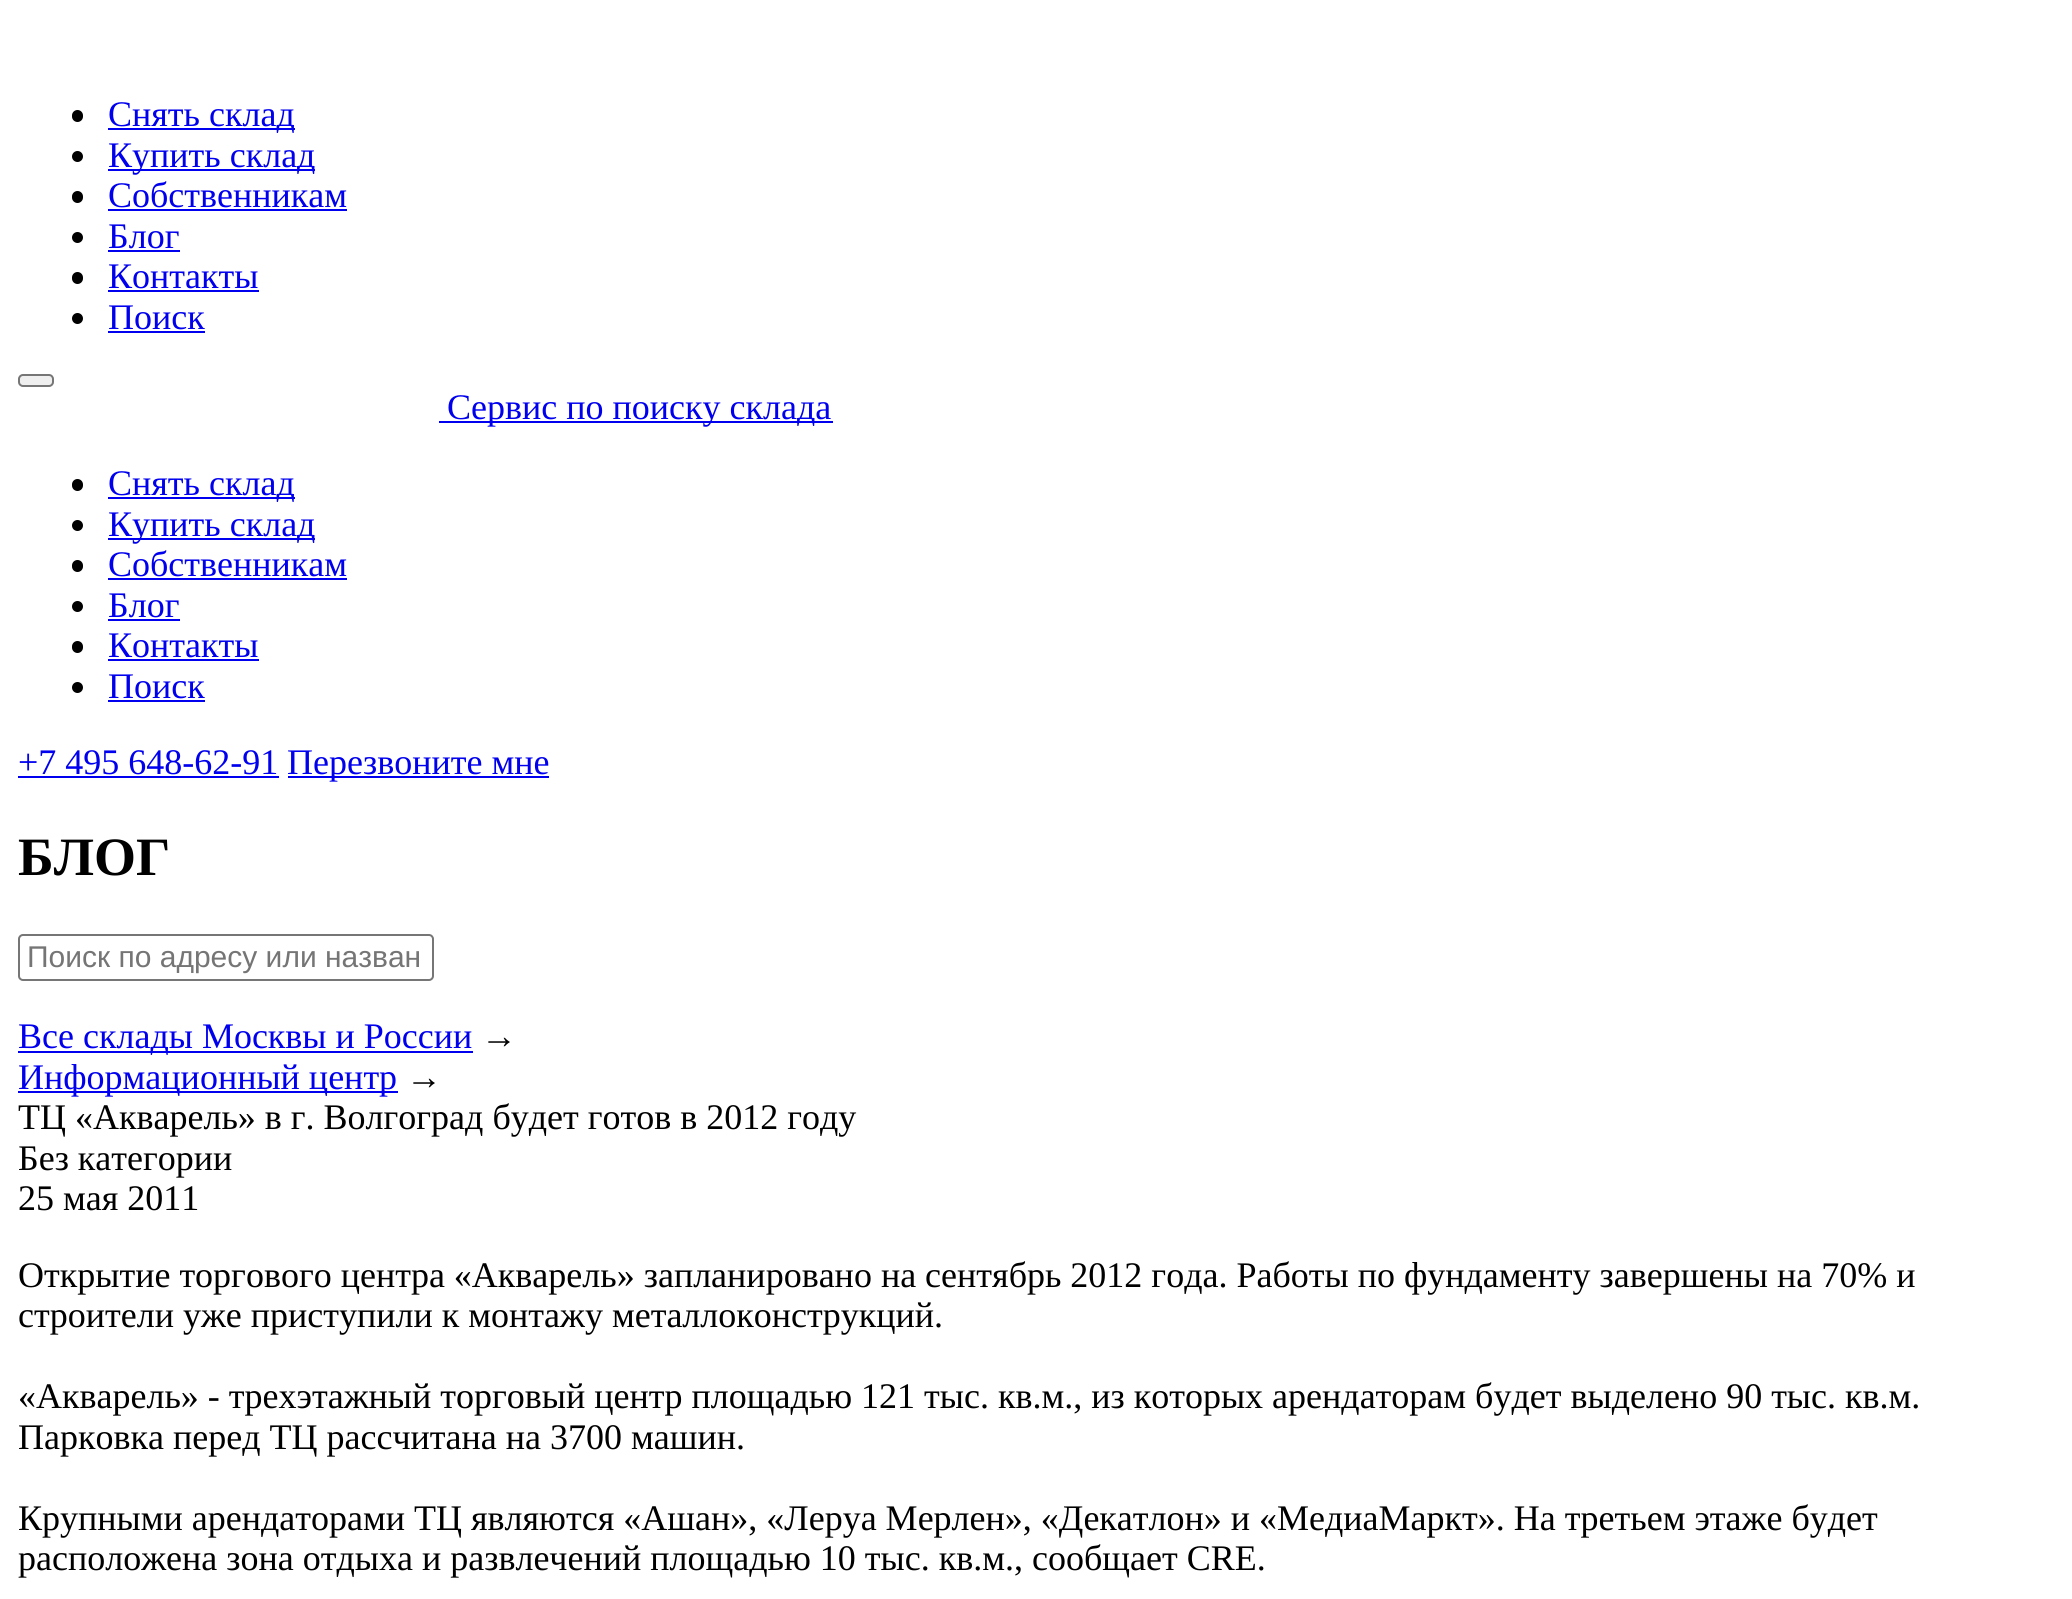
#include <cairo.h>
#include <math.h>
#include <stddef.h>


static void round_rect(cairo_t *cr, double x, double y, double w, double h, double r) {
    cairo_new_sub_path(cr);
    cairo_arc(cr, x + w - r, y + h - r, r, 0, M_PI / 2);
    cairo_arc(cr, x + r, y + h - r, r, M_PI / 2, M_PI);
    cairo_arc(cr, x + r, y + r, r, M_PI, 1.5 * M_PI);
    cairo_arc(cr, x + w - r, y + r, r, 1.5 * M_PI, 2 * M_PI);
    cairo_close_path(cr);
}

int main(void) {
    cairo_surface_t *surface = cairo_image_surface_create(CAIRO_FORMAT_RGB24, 2072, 1599);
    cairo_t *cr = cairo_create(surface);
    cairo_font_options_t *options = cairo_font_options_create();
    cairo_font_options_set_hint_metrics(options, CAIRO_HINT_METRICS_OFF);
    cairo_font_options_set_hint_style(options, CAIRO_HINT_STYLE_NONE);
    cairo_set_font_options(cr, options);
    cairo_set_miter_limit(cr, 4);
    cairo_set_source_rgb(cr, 1, 1, 1);
    cairo_paint(cr);
    cairo_set_source_rgb(cr, 0, 0, 0);
    round_rect(cr, 72, 110, 11, 12, 5.5);
    cairo_fill(cr);
    cairo_set_source_rgb(cr, 0, 0, 0.933);
    cairo_rectangle(cr, 108, 128, 187, 2);
    cairo_fill(cr);
    cairo_select_font_face(cr, "Liberation Serif", CAIRO_FONT_SLANT_NORMAL, CAIRO_FONT_WEIGHT_NORMAL);
    cairo_set_font_size(cr, 36);
    cairo_move_to(cr, 108, 126);
    cairo_show_text(cr, "Снять склад");
    cairo_set_source_rgb(cr, 0, 0, 0);
    cairo_new_path(cr);
    cairo_arc(cr, 77.5, 156.5, 5.5, 0, 2 * M_PI);
    cairo_fill(cr);
    cairo_set_source_rgb(cr, 0, 0, 0.933);
    cairo_rectangle(cr, 108, 169, 207, 2);
    cairo_fill(cr);
    cairo_move_to(cr, 108, 167);
    cairo_show_text(cr, "Купить склад");
    cairo_set_source_rgb(cr, 0, 0, 0);
    round_rect(cr, 72, 191, 11, 12, 5.5);
    cairo_fill(cr);
    cairo_set_source_rgb(cr, 0, 0, 0.933);
    cairo_move_to(cr, 108, 207);
    cairo_show_text(cr, "Собственникам");
    cairo_rectangle(cr, 108, 209, 239, 2);
    cairo_fill(cr);
    cairo_set_source_rgb(cr, 0, 0, 0);
    cairo_arc(cr, 77.5, 237.5, 5.5, 0, 2 * M_PI);
    cairo_fill(cr);
    cairo_set_source_rgb(cr, 0, 0, 0.933);
    cairo_move_to(cr, 108, 248);
    cairo_show_text(cr, "Блог");
    cairo_rectangle(cr, 108, 250, 72, 2);
    cairo_fill(cr);
    cairo_set_source_rgb(cr, 0, 0, 0);
    round_rect(cr, 72, 272, 11, 12, 5.5);
    cairo_fill(cr);
    cairo_set_source_rgb(cr, 0, 0, 0.933);
    cairo_move_to(cr, 108, 288);
    cairo_show_text(cr, "Контакты");
    cairo_rectangle(cr, 108, 290, 151, 2);
    cairo_fill(cr);
    cairo_set_source_rgb(cr, 0, 0, 0);
    cairo_arc(cr, 77.5, 318.5, 5.5, 0, 2 * M_PI);
    cairo_fill(cr);
    cairo_set_source_rgb(cr, 0, 0, 0.933);
    cairo_move_to(cr, 108, 329);
    cairo_show_text(cr, "Поиск");
    cairo_rectangle(cr, 108, 331, 97, 2);
    cairo_fill(cr);
    cairo_set_source_rgb(cr, 0.937, 0.937, 0.937);
    round_rect(cr, 19, 375, 34, 11, 4);
    cairo_fill_preserve(cr);
    cairo_set_source_rgb(cr, 0.463, 0.463, 0.463);
    cairo_stroke(cr);
    cairo_set_source_rgb(cr, 0, 0, 0.933);
    cairo_rectangle(cr, 439, 421, 394, 2);
    cairo_fill(cr);
    cairo_move_to(cr, 447, 419);
    cairo_show_text(cr, "Сервис по поиску склада");
    cairo_set_source_rgb(cr, 0, 0, 0);
    round_rect(cr, 72, 479, 11, 12, 5.5);
    cairo_fill(cr);
    cairo_set_source_rgb(cr, 0, 0, 0.933);
    cairo_rectangle(cr, 108, 497, 187, 2);
    cairo_fill(cr);
    cairo_move_to(cr, 108, 495);
    cairo_show_text(cr, "Снять склад");
    cairo_set_source_rgb(cr, 0, 0, 0);
    cairo_new_path(cr);
    cairo_arc(cr, 77.5, 525.5, 5.5, 0, 2 * M_PI);
    cairo_fill(cr);
    cairo_set_source_rgb(cr, 0, 0, 0.933);
    cairo_rectangle(cr, 108, 538, 207, 2);
    cairo_fill(cr);
    cairo_move_to(cr, 108, 536);
    cairo_show_text(cr, "Купить склад");
    cairo_set_source_rgb(cr, 0, 0, 0);
    round_rect(cr, 72, 560, 11, 12, 5.5);
    cairo_fill(cr);
    cairo_set_source_rgb(cr, 0, 0, 0.933);
    cairo_move_to(cr, 108, 576);
    cairo_show_text(cr, "Собственникам");
    cairo_rectangle(cr, 108, 578, 239, 2);
    cairo_fill(cr);
    cairo_set_source_rgb(cr, 0, 0, 0);
    cairo_arc(cr, 77.5, 606.5, 5.5, 0, 2 * M_PI);
    cairo_fill(cr);
    cairo_set_source_rgb(cr, 0, 0, 0.933);
    cairo_move_to(cr, 108, 617);
    cairo_show_text(cr, "Блог");
    cairo_rectangle(cr, 108, 619, 72, 2);
    cairo_fill(cr);
    cairo_set_source_rgb(cr, 0, 0, 0);
    round_rect(cr, 72, 641, 11, 12, 5.5);
    cairo_fill(cr);
    cairo_set_source_rgb(cr, 0, 0, 0.933);
    cairo_move_to(cr, 108, 657);
    cairo_show_text(cr, "Контакты");
    cairo_rectangle(cr, 108, 659, 151, 2);
    cairo_fill(cr);
    cairo_set_source_rgb(cr, 0, 0, 0);
    cairo_arc(cr, 77.5, 687.5, 5.5, 0, 2 * M_PI);
    cairo_fill(cr);
    cairo_set_source_rgb(cr, 0, 0, 0.933);
    cairo_move_to(cr, 108, 698);
    cairo_show_text(cr, "Поиск");
    cairo_rectangle(cr, 108, 700, 97, 2);
    cairo_fill(cr);
    cairo_move_to(cr, 18, 774);
    cairo_show_text(cr, "+7 495 648-62-91");
    cairo_rectangle(cr, 18, 776, 261, 2);
    cairo_fill(cr);
    cairo_rectangle(cr, 288, 776, 261, 2);
    cairo_fill(cr);
    cairo_move_to(cr, 287, 774);
    cairo_show_text(cr, "Перезвоните мне");
    cairo_select_font_face(cr, "Liberation Serif", CAIRO_FONT_SLANT_NORMAL, CAIRO_FONT_WEIGHT_BOLD);
    cairo_set_font_size(cr, 54);
    cairo_set_source_rgb(cr, 0, 0, 0);
    cairo_move_to(cr, 18, 875);
    cairo_show_text(cr, "БЛОГ");
    round_rect(cr, 19, 935, 414, 45, 4);
    cairo_set_source_rgb(cr, 0.463, 0.463, 0.463);
    cairo_stroke(cr);
    cairo_select_font_face(cr, "Liberation Sans", CAIRO_FONT_SLANT_NORMAL, CAIRO_FONT_WEIGHT_NORMAL);
    cairo_set_font_size(cr, 30);
    cairo_set_source_rgb(cr, 0.459, 0.459, 0.459);
    cairo_move_to(cr, 27, 967);
    cairo_show_text(cr, "Поиск по адресу или назван");
    cairo_set_source_rgb(cr, 0, 0, 0.933);
    cairo_rectangle(cr, 18, 1051, 455, 2);
    cairo_fill(cr);
    cairo_select_font_face(cr, "Liberation Serif", CAIRO_FONT_SLANT_NORMAL, CAIRO_FONT_WEIGHT_NORMAL);
    cairo_set_font_size(cr, 36);
    cairo_move_to(cr, 18, 1048);
    cairo_show_text(cr, "Все склады Москвы и России");
    cairo_set_source_rgb(cr, 0, 0, 0);
    cairo_move_to(cr, 481, 1048);
    cairo_show_text(cr, "→");
    cairo_set_source_rgb(cr, 0, 0, 0.933);
    cairo_rectangle(cr, 18, 1091, 380, 2);
    cairo_fill(cr);
    cairo_move_to(cr, 18, 1089);
    cairo_show_text(cr, "Информационный центр");
    cairo_set_source_rgb(cr, 0, 0, 0);
    cairo_move_to(cr, 406, 1089);
    cairo_show_text(cr, "→");
    cairo_move_to(cr, 18, 1129);
    cairo_show_text(cr, "ТЦ «Акварель» в г. Волгоград будет готов в 2012 году");
    cairo_move_to(cr, 18, 1170);
    cairo_show_text(cr, "Без категории");
    cairo_move_to(cr, 18, 1210);
    cairo_show_text(cr, "25 мая 2011");
    cairo_move_to(cr, 18, 1287);
    cairo_show_text(cr, "Открытие торгового центра «Акварель» запланировано на сентябрь 2012 года. Работы по фундаменту завершены на 70% и");
    cairo_move_to(cr, 18, 1327);
    cairo_show_text(cr, "строители уже приступили к монтажу металлоконструкций.");
    cairo_move_to(cr, 18, 1408);
    cairo_show_text(cr, "«Акварель» - трехэтажный торговый центр площадью 121 тыс. кв.м., из которых арендаторам будет выделено 90 тыс. кв.м.");
    cairo_move_to(cr, 18, 1449);
    cairo_show_text(cr, "Парковка перед ТЦ рассчитана на 3700 машин.");
    cairo_move_to(cr, 18, 1530);
    cairo_show_text(cr, "Крупными арендаторами ТЦ являются «Ашан», «Леруа Мерлен», «Декатлон» и «МедиаМаркт». На третьем этаже будет");
    cairo_move_to(cr, 18, 1570);
    cairo_show_text(cr, "расположена зона отдыха и развлечений площадью 10 тыс. кв.м., сообщает CRE.");
    cairo_surface_write_to_png(surface, "page.png");
    cairo_font_options_destroy(options);
    cairo_destroy(cr);
    cairo_surface_destroy(surface);
    return 0;
}
